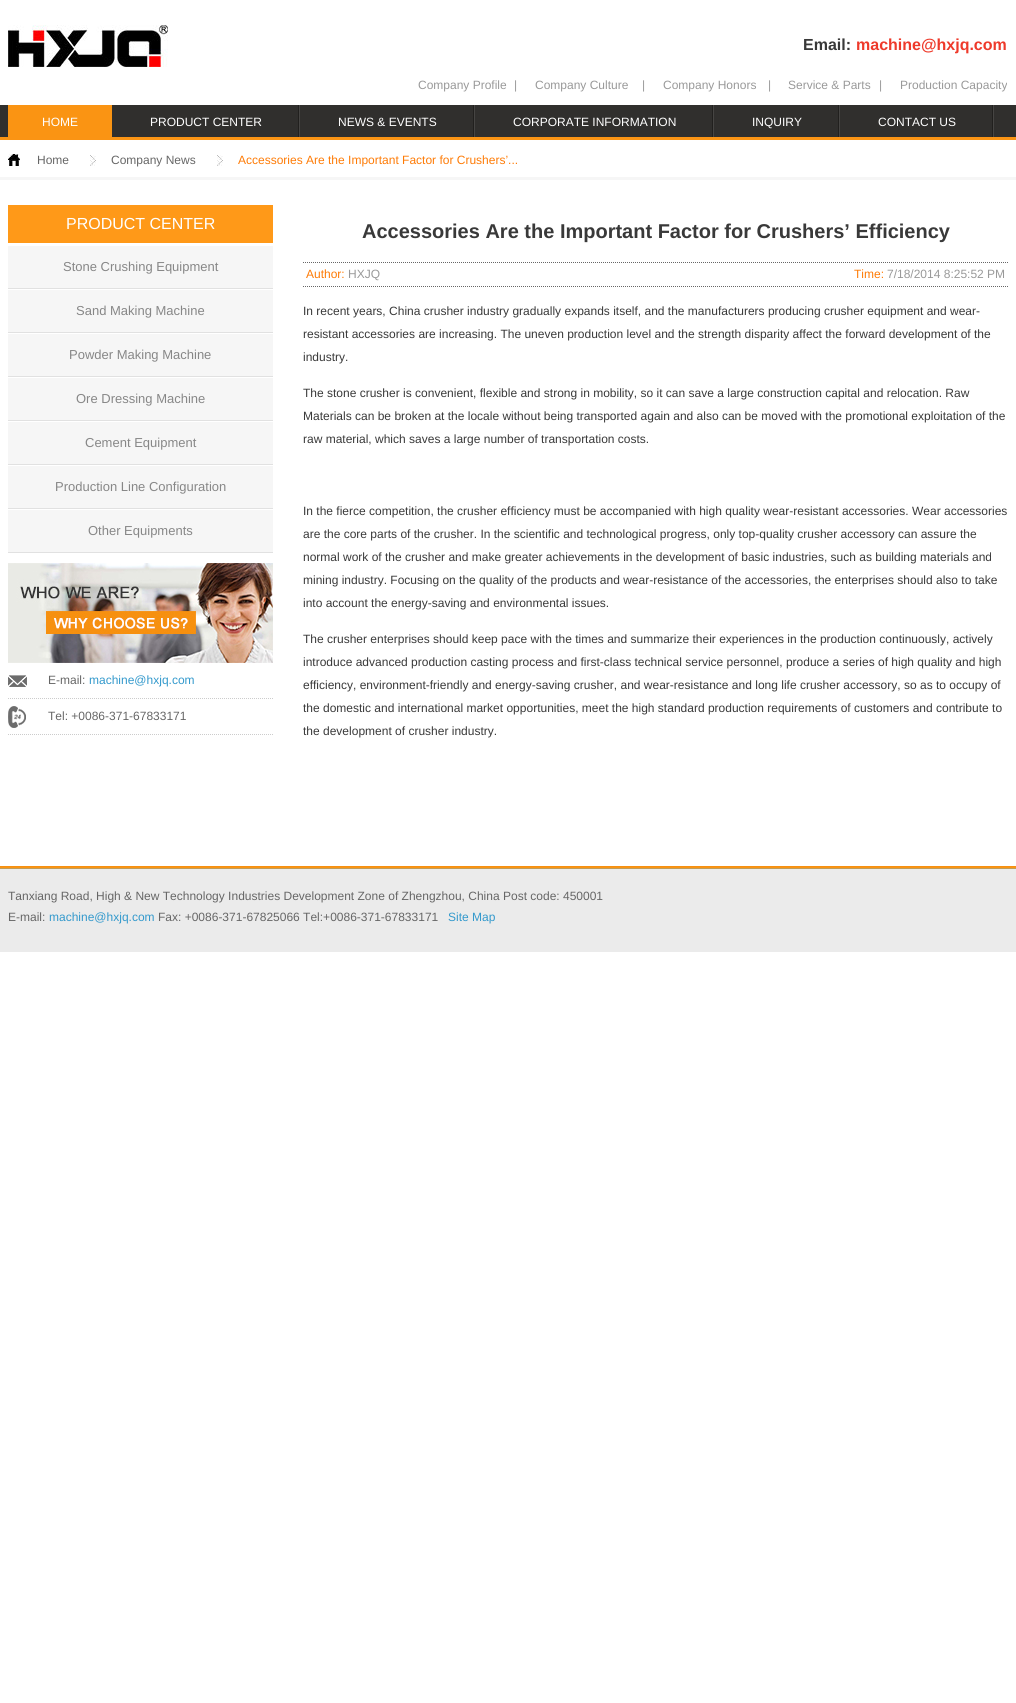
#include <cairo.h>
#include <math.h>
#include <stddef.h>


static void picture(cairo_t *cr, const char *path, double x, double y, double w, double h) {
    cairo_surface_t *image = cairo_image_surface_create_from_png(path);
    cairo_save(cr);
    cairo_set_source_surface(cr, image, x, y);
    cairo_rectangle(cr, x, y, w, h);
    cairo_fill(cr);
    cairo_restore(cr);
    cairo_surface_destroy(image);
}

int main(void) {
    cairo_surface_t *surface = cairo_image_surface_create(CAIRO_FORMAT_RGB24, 1016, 1703);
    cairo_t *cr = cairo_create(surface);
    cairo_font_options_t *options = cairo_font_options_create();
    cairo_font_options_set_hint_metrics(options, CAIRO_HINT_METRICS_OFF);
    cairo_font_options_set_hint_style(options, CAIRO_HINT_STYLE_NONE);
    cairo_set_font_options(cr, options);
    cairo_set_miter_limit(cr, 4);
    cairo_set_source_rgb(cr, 1, 1, 1);
    cairo_paint(cr);
    picture(cr, "img1.png", 8, 25, 160, 42);
    cairo_select_font_face(cr, "Liberation Sans", CAIRO_FONT_SLANT_NORMAL, CAIRO_FONT_WEIGHT_BOLD);
    cairo_set_font_size(cr, 16);
    cairo_set_source_rgb(cr, 0.224, 0.224, 0.224);
    cairo_move_to(cr, 803, 50);
    cairo_show_text(cr, "Email:");
    cairo_set_source_rgb(cr, 0.933, 0.227, 0.169);
    cairo_move_to(cr, 856, 50);
    cairo_show_text(cr, "machine@hxjq.com");
    cairo_select_font_face(cr, "Liberation Sans", CAIRO_FONT_SLANT_NORMAL, CAIRO_FONT_WEIGHT_NORMAL);
    cairo_set_font_size(cr, 12);
    cairo_set_source_rgb(cr, 0.6, 0.6, 0.6);
    cairo_move_to(cr, 418, 89);
    cairo_show_text(cr, "Company Profile");
    cairo_move_to(cr, 514, 89);
    cairo_show_text(cr, "|");
    cairo_move_to(cr, 535, 89);
    cairo_show_text(cr, "Company Culture");
    cairo_move_to(cr, 642, 89);
    cairo_show_text(cr, "|");
    cairo_move_to(cr, 663, 89);
    cairo_show_text(cr, "Company Honors");
    cairo_move_to(cr, 768, 89);
    cairo_show_text(cr, "|");
    cairo_move_to(cr, 788, 89);
    cairo_show_text(cr, "Service & Parts");
    cairo_move_to(cr, 879, 89);
    cairo_show_text(cr, "|");
    cairo_move_to(cr, 900, 89);
    cairo_show_text(cr, "Production Capacity");
    picture(cr, "img2.png", 0, 105, 1016, 35);
    cairo_set_source_rgb(cr, 0.98, 0.58, 0.078);
    cairo_rectangle(cr, 8, 105, 104, 32);
    cairo_fill(cr);
    cairo_set_source_rgb(cr, 1, 1, 1);
    cairo_move_to(cr, 42, 126);
    cairo_show_text(cr, "HOME");
    picture(cr, "img3.png", 298, 105, 2, 32);
    cairo_move_to(cr, 150, 126);
    cairo_show_text(cr, "PRODUCT CENTER");
    picture(cr, "img3.png", 473, 105, 2, 32);
    cairo_move_to(cr, 338, 126);
    cairo_show_text(cr, "NEWS & EVENTS");
    picture(cr, "img3.png", 712, 105, 2, 32);
    cairo_move_to(cr, 513, 126);
    cairo_show_text(cr, "CORPORATE INFORMATION");
    picture(cr, "img3.png", 838, 105, 2, 32);
    cairo_move_to(cr, 752, 126);
    cairo_show_text(cr, "INQUIRY");
    picture(cr, "img3.png", 992, 105, 2, 32);
    cairo_move_to(cr, 878, 126);
    cairo_show_text(cr, "CONTACT US");
    cairo_set_source_rgb(cr, 0.961, 0.961, 0.961);
    cairo_rectangle(cr, 0, 177, 1016, 3);
    cairo_fill(cr);
    picture(cr, "img4.png", 8, 154, 12, 12);
    cairo_set_source_rgb(cr, 0.4, 0.4, 0.4);
    cairo_move_to(cr, 37, 164);
    cairo_show_text(cr, "Home");
    picture(cr, "img5.png", 90, 155, 6, 11);
    cairo_move_to(cr, 111, 164);
    cairo_show_text(cr, "Company News");
    picture(cr, "img5.png", 217, 155, 6, 11);
    cairo_set_source_rgb(cr, 0.996, 0.482, 0.024);
    cairo_move_to(cr, 238, 164);
    cairo_show_text(cr, "Accessories Are the Important Factor for Crushers’...");
    cairo_set_source_rgb(cr, 1, 0.6, 0.094);
    cairo_rectangle(cr, 8, 205, 265, 38);
    cairo_fill(cr);
    cairo_set_font_size(cr, 16);
    cairo_set_source_rgb(cr, 1, 1, 1);
    cairo_move_to(cr, 66, 229);
    cairo_show_text(cr, "PRODUCT CENTER");
    cairo_set_source_rgb(cr, 0.961, 0.961, 0.961);
    cairo_rectangle(cr, 8, 246, 265, 42);
    cairo_fill(cr);
    cairo_set_source_rgb(cr, 0.882, 0.882, 0.882);
    cairo_rectangle(cr, 8, 288, 265, 1);
    cairo_fill(cr);
    cairo_set_font_size(cr, 13);
    cairo_set_source_rgb(cr, 0.529, 0.529, 0.529);
    cairo_move_to(cr, 63, 271);
    cairo_show_text(cr, "Stone Crushing Equipment");
    cairo_set_source_rgb(cr, 0.961, 0.961, 0.961);
    cairo_rectangle(cr, 8, 290, 265, 42);
    cairo_fill(cr);
    cairo_set_source_rgb(cr, 0.882, 0.882, 0.882);
    cairo_rectangle(cr, 8, 332, 265, 1);
    cairo_fill(cr);
    cairo_set_source_rgb(cr, 0.529, 0.529, 0.529);
    cairo_move_to(cr, 76, 315);
    cairo_show_text(cr, "Sand Making Machine");
    cairo_set_source_rgb(cr, 0.961, 0.961, 0.961);
    cairo_rectangle(cr, 8, 334, 265, 42);
    cairo_fill(cr);
    cairo_set_source_rgb(cr, 0.882, 0.882, 0.882);
    cairo_rectangle(cr, 8, 376, 265, 1);
    cairo_fill(cr);
    cairo_set_source_rgb(cr, 0.529, 0.529, 0.529);
    cairo_move_to(cr, 69, 359);
    cairo_show_text(cr, "Powder Making Machine");
    cairo_set_source_rgb(cr, 0.961, 0.961, 0.961);
    cairo_rectangle(cr, 8, 378, 265, 42);
    cairo_fill(cr);
    cairo_set_source_rgb(cr, 0.882, 0.882, 0.882);
    cairo_rectangle(cr, 8, 420, 265, 1);
    cairo_fill(cr);
    cairo_set_source_rgb(cr, 0.529, 0.529, 0.529);
    cairo_move_to(cr, 76, 403);
    cairo_show_text(cr, "Ore Dressing Machine");
    cairo_set_source_rgb(cr, 0.961, 0.961, 0.961);
    cairo_rectangle(cr, 8, 422, 265, 42);
    cairo_fill(cr);
    cairo_set_source_rgb(cr, 0.882, 0.882, 0.882);
    cairo_rectangle(cr, 8, 464, 265, 1);
    cairo_fill(cr);
    cairo_set_source_rgb(cr, 0.529, 0.529, 0.529);
    cairo_move_to(cr, 85, 447);
    cairo_show_text(cr, "Cement Equipment");
    cairo_set_source_rgb(cr, 0.961, 0.961, 0.961);
    cairo_rectangle(cr, 8, 466, 265, 42);
    cairo_fill(cr);
    cairo_set_source_rgb(cr, 0.882, 0.882, 0.882);
    cairo_rectangle(cr, 8, 508, 265, 1);
    cairo_fill(cr);
    cairo_set_source_rgb(cr, 0.529, 0.529, 0.529);
    cairo_move_to(cr, 55, 491);
    cairo_show_text(cr, "Production Line Configuration");
    cairo_set_source_rgb(cr, 0.961, 0.961, 0.961);
    cairo_rectangle(cr, 8, 510, 265, 42);
    cairo_fill(cr);
    cairo_set_source_rgb(cr, 0.882, 0.882, 0.882);
    cairo_rectangle(cr, 8, 552, 265, 1);
    cairo_fill(cr);
    cairo_set_source_rgb(cr, 0.529, 0.529, 0.529);
    cairo_move_to(cr, 88, 535);
    cairo_show_text(cr, "Other Equipments");
    picture(cr, "img6.png", 8, 563, 265, 100);
    picture(cr, "img7.png", 8, 675, 19, 12);
    cairo_new_path(cr);
    cairo_move_to(cr, 8, 698.5);
    cairo_line_to(cr, 273, 698.5);
    cairo_set_source_rgb(cr, 0.8, 0.8, 0.8);
    cairo_set_line_width(cr, 1);
    cairo_set_dash(cr, (double[]){1, 1}, 2, 0);
    cairo_stroke(cr);
    cairo_set_font_size(cr, 12);
    cairo_set_source_rgb(cr, 0.4, 0.4, 0.4);
    cairo_move_to(cr, 48, 684);
    cairo_show_text(cr, "E-mail:");
    cairo_set_source_rgb(cr, 0.2, 0.6, 0.8);
    cairo_move_to(cr, 89, 684);
    cairo_show_text(cr, "machine@hxjq.com");
    picture(cr, "img8.png", 8, 706, 18, 22);
    cairo_new_path(cr);
    cairo_move_to(cr, 8, 734.5);
    cairo_line_to(cr, 273, 734.5);
    cairo_set_source_rgb(cr, 0.8, 0.8, 0.8);
    cairo_stroke(cr);
    cairo_set_source_rgb(cr, 0.4, 0.4, 0.4);
    cairo_move_to(cr, 48, 720);
    cairo_show_text(cr, "Tel: +0086-371-67833171");
    cairo_select_font_face(cr, "Liberation Sans", CAIRO_FONT_SLANT_NORMAL, CAIRO_FONT_WEIGHT_BOLD);
    cairo_set_font_size(cr, 20);
    cairo_set_source_rgb(cr, 0.224, 0.224, 0.224);
    cairo_move_to(cr, 362, 238);
    cairo_show_text(cr, "Accessories Are the Important Factor for Crushers’ Efficiency");
    cairo_new_path(cr);
    cairo_move_to(cr, 303, 262.5);
    cairo_line_to(cr, 1008, 262.5);
    cairo_set_source_rgb(cr, 0.4, 0.4, 0.4);
    cairo_stroke(cr);
    cairo_new_path(cr);
    cairo_move_to(cr, 303, 286.5);
    cairo_line_to(cr, 1008, 286.5);
    cairo_stroke(cr);
    cairo_select_font_face(cr, "Liberation Sans", CAIRO_FONT_SLANT_NORMAL, CAIRO_FONT_WEIGHT_NORMAL);
    cairo_set_font_size(cr, 12);
    cairo_set_source_rgb(cr, 0.996, 0.482, 0.024);
    cairo_move_to(cr, 306, 278);
    cairo_show_text(cr, "Author:");
    cairo_set_source_rgb(cr, 0.6, 0.6, 0.6);
    cairo_move_to(cr, 348, 278);
    cairo_show_text(cr, "HXJQ");
    cairo_set_source_rgb(cr, 0.996, 0.482, 0.024);
    cairo_move_to(cr, 854, 278);
    cairo_show_text(cr, "Time:");
    cairo_set_source_rgb(cr, 0.6, 0.6, 0.6);
    cairo_move_to(cr, 887, 278);
    cairo_show_text(cr, "7/18/2014 8:25:52 PM");
    cairo_set_source_rgb(cr, 0.224, 0.224, 0.224);
    cairo_move_to(cr, 303, 315);
    cairo_show_text(cr, "In recent years, China crusher industry gradually expands itself, and the manufacturers producing crusher equipment and wear-");
    cairo_move_to(cr, 303, 338);
    cairo_show_text(cr, "resistant accessories are increasing. The uneven production level and the strength disparity affect the forward development of the");
    cairo_move_to(cr, 303, 361);
    cairo_show_text(cr, "industry.");
    cairo_move_to(cr, 303, 397);
    cairo_show_text(cr, "The stone crusher is convenient, flexible and strong in mobility, so it can save a large construction capital and relocation. Raw");
    cairo_move_to(cr, 303, 420);
    cairo_show_text(cr, "Materials can be broken at the locale without being transported again and also can be moved with the promotional exploitation of the");
    cairo_move_to(cr, 303, 443);
    cairo_show_text(cr, "raw material, which saves a large number of transportation costs.");
    cairo_move_to(cr, 303, 515);
    cairo_show_text(cr, "In the fierce competition, the crusher efficiency must be accompanied with high quality wear-resistant accessories. Wear accessories");
    cairo_move_to(cr, 303, 538);
    cairo_show_text(cr, "are the core parts of the crusher. In the scientific and technological progress, only top-quality crusher accessory can assure the");
    cairo_move_to(cr, 303, 561);
    cairo_show_text(cr, "normal work of the crusher and make greater achievements in the development of basic industries, such as building materials and");
    cairo_move_to(cr, 303, 584);
    cairo_show_text(cr, "mining industry. Focusing on the quality of the products and wear-resistance of the accessories, the enterprises should also to take");
    cairo_move_to(cr, 303, 607);
    cairo_show_text(cr, "into account the energy-saving and environmental issues.");
    cairo_move_to(cr, 303, 643);
    cairo_show_text(cr, "The crusher enterprises should keep pace with the times and summarize their experiences in the production continuously, actively");
    cairo_move_to(cr, 303, 666);
    cairo_show_text(cr, "introduce advanced production casting process and first-class technical service personnel, produce a series of high quality and high");
    cairo_move_to(cr, 303, 689);
    cairo_show_text(cr, "efficiency, environment-friendly and energy-saving crusher, and wear-resistance and long life crusher accessory, so as to occupy of");
    cairo_move_to(cr, 303, 712);
    cairo_show_text(cr, "the domestic and international market opportunities, meet the high standard production requirements of customers and contribute to");
    cairo_move_to(cr, 303, 735);
    cairo_show_text(cr, "the development of crusher industry.");
    picture(cr, "img9.png", 0, 866, 1016, 86);
    cairo_set_source_rgb(cr, 0.4, 0.4, 0.4);
    cairo_move_to(cr, 8, 900);
    cairo_show_text(cr, "Tanxiang Road, High & New Technology Industries Development Zone of Zhengzhou, China Post code: 450001");
    cairo_move_to(cr, 8, 921);
    cairo_show_text(cr, "E-mail:");
    cairo_set_source_rgb(cr, 0.2, 0.6, 0.8);
    cairo_move_to(cr, 49, 921);
    cairo_show_text(cr, "machine@hxjq.com");
    cairo_set_source_rgb(cr, 0.4, 0.4, 0.4);
    cairo_move_to(cr, 158, 921);
    cairo_show_text(cr, "Fax: +0086-371-67825066 Tel:+0086-371-67833171");
    cairo_set_source_rgb(cr, 0.2, 0.6, 0.8);
    cairo_move_to(cr, 448, 921);
    cairo_show_text(cr, "Site Map");
    cairo_surface_write_to_png(surface, "page.png");
    cairo_font_options_destroy(options);
    cairo_destroy(cr);
    cairo_surface_destroy(surface);
    return 0;
}
